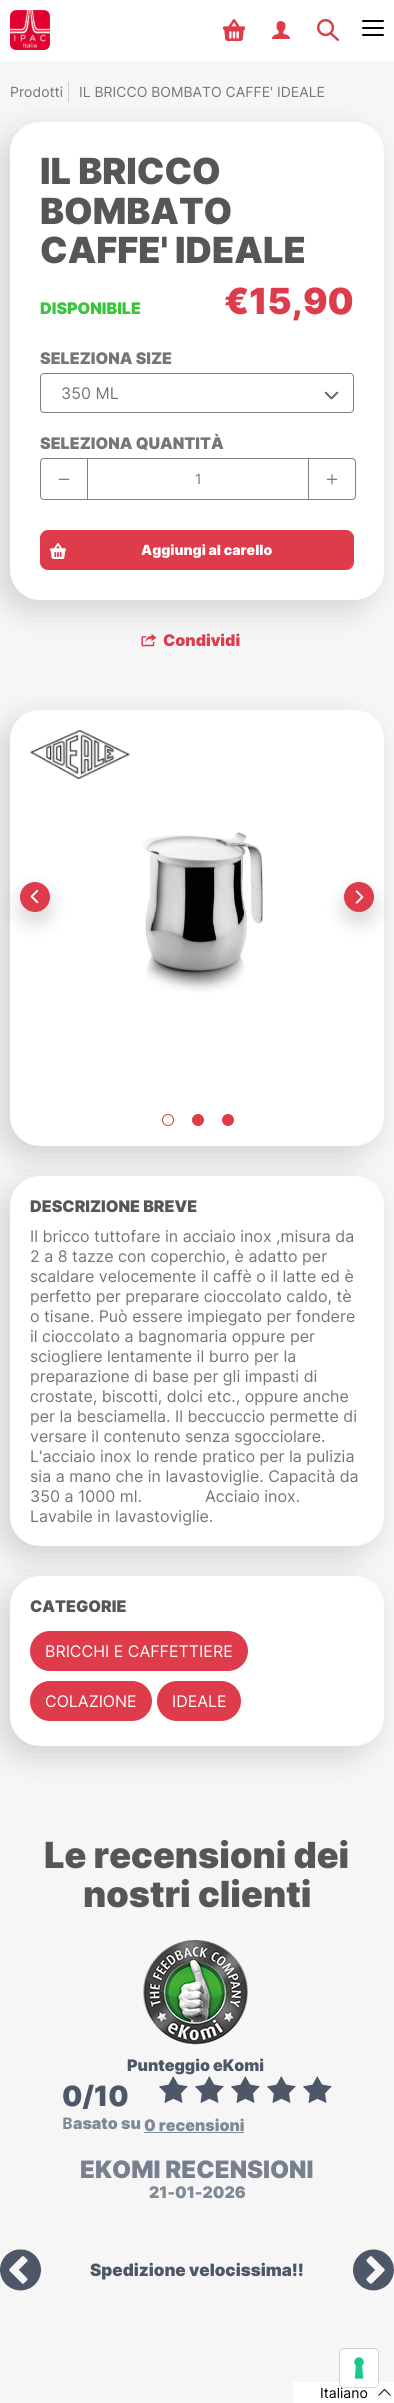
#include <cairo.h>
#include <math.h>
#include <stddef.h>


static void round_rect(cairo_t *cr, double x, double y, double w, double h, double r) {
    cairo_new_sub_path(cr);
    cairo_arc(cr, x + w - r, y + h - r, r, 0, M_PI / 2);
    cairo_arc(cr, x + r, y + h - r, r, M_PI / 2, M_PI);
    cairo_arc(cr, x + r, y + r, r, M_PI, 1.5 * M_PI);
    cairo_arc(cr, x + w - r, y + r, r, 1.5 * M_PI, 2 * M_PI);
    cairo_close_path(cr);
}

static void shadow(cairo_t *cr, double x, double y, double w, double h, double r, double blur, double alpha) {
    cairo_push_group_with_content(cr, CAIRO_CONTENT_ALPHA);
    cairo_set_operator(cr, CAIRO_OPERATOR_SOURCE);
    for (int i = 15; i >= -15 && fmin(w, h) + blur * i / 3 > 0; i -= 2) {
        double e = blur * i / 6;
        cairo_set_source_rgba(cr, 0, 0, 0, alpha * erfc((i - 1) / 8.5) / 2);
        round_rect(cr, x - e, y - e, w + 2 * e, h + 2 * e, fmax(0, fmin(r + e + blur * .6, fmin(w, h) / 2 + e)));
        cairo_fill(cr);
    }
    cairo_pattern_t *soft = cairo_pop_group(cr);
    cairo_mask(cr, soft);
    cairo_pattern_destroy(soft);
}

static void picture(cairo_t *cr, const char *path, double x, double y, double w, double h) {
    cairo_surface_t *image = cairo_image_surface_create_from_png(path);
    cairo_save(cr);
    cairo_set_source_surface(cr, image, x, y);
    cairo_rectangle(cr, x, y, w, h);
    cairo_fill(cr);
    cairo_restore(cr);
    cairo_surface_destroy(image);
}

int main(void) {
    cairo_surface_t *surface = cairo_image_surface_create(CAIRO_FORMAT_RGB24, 394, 2403);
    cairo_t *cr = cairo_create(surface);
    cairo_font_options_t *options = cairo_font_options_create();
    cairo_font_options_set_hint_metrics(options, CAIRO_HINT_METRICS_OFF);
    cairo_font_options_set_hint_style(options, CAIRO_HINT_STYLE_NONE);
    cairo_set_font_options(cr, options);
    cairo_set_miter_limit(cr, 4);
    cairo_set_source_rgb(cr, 1, 1, 1);
    cairo_paint(cr);
    picture(cr, "img1.png", 10, 10, 40, 40);
    picture(cr, "img2.png", 223, 19, 22, 22);
    picture(cr, "img3.png", 272, 21, 18, 18);
    picture(cr, "img4.png", 317, 19, 22, 22);
    cairo_set_source_rgb(cr, 0, 0, 0);
    round_rect(cr, 362, 20, 22, 2, 1);
    cairo_fill(cr);
    round_rect(cr, 362, 27, 22, 2, 1);
    cairo_fill(cr);
    round_rect(cr, 362, 34, 22, 2, 1);
    cairo_fill(cr);
    cairo_set_source_rgb(cr, 0.961, 0.961, 0.961);
    cairo_rectangle(cr, 0, 61, 394, 2342);
    cairo_fill(cr);
    cairo_set_source_rgb(cr, 0, 0, 0);
    shadow(cr, 0, 132, 374, 478, 30, 15, 0.15);
    cairo_select_font_face(cr, "Inter", CAIRO_FONT_SLANT_NORMAL, CAIRO_FONT_WEIGHT_NORMAL);
    cairo_set_font_size(cr, 14);
    cairo_set_source_rgb(cr, 0.463, 0.463, 0.463);
    cairo_move_to(cr, 10, 97);
    cairo_show_text(cr, "Prodotti");
    cairo_set_source_rgb(cr, 0.804, 0.816, 0.882);
    cairo_rectangle(cr, 68, 82, 1, 20);
    cairo_fill(cr);
    cairo_set_source_rgb(cr, 0.463, 0.463, 0.463);
    cairo_move_to(cr, 79, 97);
    cairo_show_text(cr, "IL BRICCO BOMBATO CAFFE' IDEALE");
    cairo_set_source_rgb(cr, 1, 1, 1);
    round_rect(cr, 10, 122, 374, 478, 30);
    cairo_fill(cr);
    cairo_select_font_face(cr, "Inter Black", CAIRO_FONT_SLANT_NORMAL, CAIRO_FONT_WEIGHT_NORMAL);
    cairo_set_font_size(cr, 36);
    cairo_set_source_rgb(cr, 0.337, 0.337, 0.337);
    cairo_move_to(cr, 40, 184);
    cairo_show_text(cr, "IL BRICCO");
    cairo_move_to(cr, 40, 224);
    cairo_show_text(cr, "BOMBATO");
    cairo_move_to(cr, 40, 263);
    cairo_show_text(cr, "CAFFE' IDEALE");
    cairo_set_font_size(cr, 16);
    cairo_set_source_rgb(cr, 0.227, 0.773, 0.247);
    cairo_move_to(cr, 40, 314);
    cairo_show_text(cr, "DISPONIBILE");
    cairo_set_font_size(cr, 36);
    cairo_set_source_rgb(cr, 0.871, 0.235, 0.294);
    cairo_move_to(cr, 224, 314);
    cairo_show_text(cr, "€15,90");
    cairo_set_font_size(cr, 16);
    cairo_set_source_rgb(cr, 0.463, 0.463, 0.463);
    cairo_move_to(cr, 40, 364);
    cairo_show_text(cr, "SELEZIONA SIZE");
    round_rect(cr, 40.5, 373.5, 313, 39, 3.5);
    cairo_set_source_rgb(cr, 0.502, 0.502, 0.502);
    cairo_set_line_width(cr, 1);
    cairo_stroke(cr);
    cairo_select_font_face(cr, "Inter", CAIRO_FONT_SLANT_NORMAL, CAIRO_FONT_WEIGHT_NORMAL);
    cairo_set_source_rgb(cr, 0.463, 0.463, 0.463);
    cairo_move_to(cr, 61, 399);
    cairo_show_text(cr, "350 ML");
    picture(cr, "img5.png", 324, 391, 15, 9);
    cairo_select_font_face(cr, "Inter Black", CAIRO_FONT_SLANT_NORMAL, CAIRO_FONT_WEIGHT_NORMAL);
    cairo_move_to(cr, 40, 449);
    cairo_show_text(cr, "SELEZIONA QUANTITÀ");
    round_rect(cr, 40.5, 458.5, 315, 41, 3.5);
    cairo_set_source_rgb(cr, 0.502, 0.502, 0.502);
    cairo_stroke(cr);
    cairo_rectangle(cr, 87, 459, 1, 40);
    cairo_fill(cr);
    picture(cr, "img6.png", 58, 478, 12, 2);
    cairo_select_font_face(cr, "Inter", CAIRO_FONT_SLANT_NORMAL, CAIRO_FONT_WEIGHT_NORMAL);
    cairo_set_font_size(cr, 14);
    cairo_set_source_rgb(cr, 0.463, 0.463, 0.463);
    cairo_move_to(cr, 195, 484);
    cairo_show_text(cr, "1");
    cairo_set_source_rgb(cr, 0.502, 0.502, 0.502);
    cairo_rectangle(cr, 308, 459, 1, 40);
    cairo_fill(cr);
    picture(cr, "img7.png", 326, 474, 12, 11);
    cairo_set_source_rgb(cr, 0.871, 0.235, 0.294);
    round_rect(cr, 40.5, 530.5, 313, 39, 7.5);
    cairo_fill_preserve(cr);
    cairo_stroke(cr);
    picture(cr, "img8.png", 50, 543, 16, 16);
    cairo_select_font_face(cr, "Inter Black", CAIRO_FONT_SLANT_NORMAL, CAIRO_FONT_WEIGHT_NORMAL);
    cairo_set_source_rgb(cr, 1, 1, 1);
    cairo_move_to(cr, 141, 555);
    cairo_show_text(cr, "Aggiungi al carello");
    picture(cr, "img9.png", 141, 633, 16, 14);
    cairo_set_font_size(cr, 16);
    cairo_set_source_rgb(cr, 0.871, 0.235, 0.294);
    cairo_move_to(cr, 163, 646);
    cairo_show_text(cr, "Condividi");
    cairo_set_source_rgb(cr, 0, 0, 0);
    shadow(cr, 0, 720, 374, 436, 30, 15, 0.15);
    cairo_set_source_rgb(cr, 1, 1, 1);
    round_rect(cr, 10, 710, 374, 436, 30);
    cairo_fill(cr);
    picture(cr, "img10.png", 10, 722, 253, 271);
    cairo_set_source_rgb(cr, 0, 0, 0);
    shadow(cr, 20, 892, 30, 30, 15, 10, 0.15);
    cairo_set_source_rgb(cr, 0.871, 0.235, 0.294);
    cairo_arc(cr, 35, 897, 15, 0, 2 * M_PI);
    cairo_fill(cr);
    picture(cr, "img11.png", 30, 889, 9, 15);
    cairo_set_source_rgb(cr, 0, 0, 0);
    shadow(cr, 344, 892, 30, 30, 15, 10, 0.15);
    cairo_set_source_rgb(cr, 0.871, 0.235, 0.294);
    cairo_new_path(cr);
    cairo_move_to(cr, 359, 912);
    cairo_curve_to(cr, 350.5, 912, 344, 905, 344, 897);
    cairo_curve_to(cr, 344, 888.5, 350.5, 882, 359, 882);
    cairo_curve_to(cr, 367.5, 882, 374, 888.5, 374, 897);
    cairo_curve_to(cr, 374, 905, 367.5, 912, 359, 912);
    cairo_close_path(cr);
    cairo_fill(cr);
    picture(cr, "img12.png", 355, 890, 9, 14);
    picture(cr, "img13.png", 30, 730, 100, 49);
    cairo_arc(cr, 168, 1120, 5.5, 0, 2 * M_PI);
    cairo_stroke(cr);
    cairo_arc(cr, 198, 1120, 5.5, 0, 2 * M_PI);
    cairo_fill_preserve(cr);
    cairo_stroke(cr);
    cairo_arc(cr, 228, 1120, 5.5, 0, 2 * M_PI);
    cairo_fill_preserve(cr);
    cairo_stroke(cr);
    cairo_set_source_rgb(cr, 0, 0, 0);
    shadow(cr, 0, 1186, 374, 370, 30, 15, 0.15);
    cairo_set_source_rgb(cr, 1, 1, 1);
    round_rect(cr, 10, 1176, 374, 370, 30);
    cairo_fill(cr);
    cairo_set_source_rgb(cr, 0.337, 0.337, 0.337);
    cairo_move_to(cr, 30, 1212);
    cairo_show_text(cr, "DESCRIZIONE BREVE");
    cairo_select_font_face(cr, "Inter", CAIRO_FONT_SLANT_NORMAL, CAIRO_FONT_WEIGHT_NORMAL);
    cairo_set_source_rgb(cr, 0.463, 0.463, 0.463);
    cairo_move_to(cr, 30, 1242);
    cairo_show_text(cr, "Il bricco tuttofare in acciaio inox ,misura da");
    cairo_move_to(cr, 30, 1262);
    cairo_show_text(cr, "2 a 8 tazze con coperchio, è adatto per");
    cairo_move_to(cr, 30, 1282);
    cairo_show_text(cr, "scaldare velocemente il caffè o il latte ed è");
    cairo_move_to(cr, 30, 1302);
    cairo_show_text(cr, "perfetto per preparare cioccolato caldo, tè");
    cairo_move_to(cr, 30, 1322);
    cairo_show_text(cr, "o tisane. Può essere impiegato per fondere");
    cairo_move_to(cr, 30, 1342);
    cairo_show_text(cr, "il cioccolato a bagnomaria oppure per");
    cairo_move_to(cr, 30, 1362);
    cairo_show_text(cr, "sciogliere lentamente il burro per la");
    cairo_move_to(cr, 30, 1382);
    cairo_show_text(cr, "preparazione di base per gli impasti di");
    cairo_move_to(cr, 30, 1402);
    cairo_show_text(cr, "crostate, biscotti, dolci etc., oppure anche");
    cairo_move_to(cr, 30, 1422);
    cairo_show_text(cr, "per la besciamella. Il beccuccio permette di");
    cairo_move_to(cr, 30, 1442);
    cairo_show_text(cr, "versare il contenuto senza sgocciolare.");
    cairo_move_to(cr, 30, 1462);
    cairo_show_text(cr, "L'acciaio inox lo rende pratico per la pulizia");
    cairo_move_to(cr, 30, 1482);
    cairo_show_text(cr, "sia a mano che in lavastoviglie. Capacità da");
    cairo_move_to(cr, 30, 1502);
    cairo_show_text(cr, "350 a 1000 ml.              Acciaio inox.");
    cairo_move_to(cr, 30, 1522);
    cairo_show_text(cr, "Lavabile in lavastoviglie.");
    cairo_set_source_rgb(cr, 0, 0, 0);
    shadow(cr, 0, 1586, 374, 170, 30, 15, 0.15);
    cairo_set_source_rgb(cr, 1, 1, 1);
    round_rect(cr, 10, 1576, 374, 170, 30);
    cairo_fill(cr);
    cairo_select_font_face(cr, "Inter Black", CAIRO_FONT_SLANT_NORMAL, CAIRO_FONT_WEIGHT_NORMAL);
    cairo_set_source_rgb(cr, 0.337, 0.337, 0.337);
    cairo_move_to(cr, 30, 1612);
    cairo_show_text(cr, "CATEGORIE");
    cairo_set_source_rgb(cr, 0.871, 0.235, 0.294);
    round_rect(cr, 30, 1631, 218, 40, 20);
    cairo_fill(cr);
    cairo_select_font_face(cr, "Inter", CAIRO_FONT_SLANT_NORMAL, CAIRO_FONT_WEIGHT_NORMAL);
    cairo_set_source_rgb(cr, 1, 1, 1);
    cairo_move_to(cr, 45, 1657);
    cairo_show_text(cr, "BRICCHI E CAFFETTIERE");
    cairo_set_source_rgb(cr, 0.871, 0.235, 0.294);
    round_rect(cr, 30, 1681, 122, 40, 20);
    cairo_fill(cr);
    cairo_set_source_rgb(cr, 1, 1, 1);
    cairo_move_to(cr, 45, 1707);
    cairo_show_text(cr, "COLAZIONE");
    cairo_set_source_rgb(cr, 0.871, 0.235, 0.294);
    round_rect(cr, 157, 1681, 84, 40, 20);
    cairo_fill(cr);
    cairo_set_source_rgb(cr, 1, 1, 1);
    cairo_move_to(cr, 172, 1707);
    cairo_show_text(cr, "IDEALE");
    cairo_select_font_face(cr, "Inter Black", CAIRO_FONT_SLANT_NORMAL, CAIRO_FONT_WEIGHT_NORMAL);
    cairo_set_font_size(cr, 36);
    cairo_set_source_rgb(cr, 0.337, 0.337, 0.337);
    cairo_move_to(cr, 44, 1868);
    cairo_show_text(cr, "Le recensioni dei");
    cairo_move_to(cr, 83, 1907);
    cairo_show_text(cr, "nostri clienti");
    picture(cr, "img14.png", 143, 1940, 105, 105);
    cairo_set_font_size(cr, 16);
    cairo_set_source_rgb(cr, 0.306, 0.341, 0.408);
    cairo_move_to(cr, 127, 2071);
    cairo_show_text(cr, "Punteggio eKomi");
    cairo_set_font_size(cr, 28);
    cairo_move_to(cr, 62, 2106);
    cairo_show_text(cr, "0/10");
    picture(cr, "img15.png", 159, 2076, 173, 27);
    cairo_select_font_face(cr, "Noto Sans", CAIRO_FONT_SLANT_NORMAL, CAIRO_FONT_WEIGHT_BOLD);
    cairo_set_font_size(cr, 16);
    cairo_set_source_rgb(cr, 0.498, 0.537, 0.584);
    cairo_move_to(cr, 62, 2129);
    cairo_show_text(cr, "B");
    cairo_select_font_face(cr, "Inter Black", CAIRO_FONT_SLANT_NORMAL, CAIRO_FONT_WEIGHT_NORMAL);
    cairo_move_to(cr, 73, 2129);
    cairo_show_text(cr, "asato su");
    cairo_move_to(cr, 144, 2131);
    cairo_show_text(cr, "0 recensioni");
    cairo_rectangle(cr, 144, 2132, 100, 1);
    cairo_fill(cr);
    cairo_set_font_size(cr, 24);
    cairo_set_source_rgb(cr, 0.463, 0.502, 0.557);
    cairo_move_to(cr, 80, 2178);
    cairo_show_text(cr, "EKOMI RECENSIONI");
    cairo_set_font_size(cr, 16);
    cairo_set_source_rgb(cr, 0.498, 0.537, 0.584);
    cairo_move_to(cr, 149, 2198);
    cairo_show_text(cr, "21-01-2026");
    picture(cr, "img16.png", 0, 2249, 41, 42);
    cairo_set_font_size(cr, 17);
    cairo_set_source_rgb(cr, 0.306, 0.341, 0.408);
    cairo_move_to(cr, 90, 2276);
    cairo_show_text(cr, "Spedizione velocissima!!");
    picture(cr, "img17.png", 353, 2249, 41, 42);
    cairo_set_source_rgb(cr, 1, 1, 1);
    cairo_rectangle(cr, 293, 2382, 101, 21);
    cairo_fill(cr);
    cairo_select_font_face(cr, "Inter", CAIRO_FONT_SLANT_NORMAL, CAIRO_FONT_WEIGHT_NORMAL);
    cairo_set_font_size(cr, 14);
    cairo_set_source_rgb(cr, 0, 0, 0);
    cairo_move_to(cr, 320, 2398);
    cairo_show_text(cr, "Italiano");
    round_rect(cr, 339.5, 2348.5, 39, 39, 4.5);
    cairo_set_source_rgba(cr, 0, 0, 0, 0.15);
    cairo_stroke(cr);
    cairo_set_source_rgb(cr, 1, 1, 1);
    round_rect(cr, 340, 2349, 38, 38, 4);
    cairo_fill(cr);
    picture(cr, "img18.png", 354, 2357, 10, 22);
    cairo_new_path(cr);
    cairo_move_to(cr, 390.5, 2395.5);
    cairo_line_to(cr, 384.5, 2389.5);
    cairo_line_to(cr, 378.5, 2395.5);
    cairo_set_source_rgb(cr, 0, 0, 0);
    cairo_stroke(cr);
    cairo_surface_write_to_png(surface, "page.png");
    cairo_font_options_destroy(options);
    cairo_destroy(cr);
    cairo_surface_destroy(surface);
    return 0;
}
